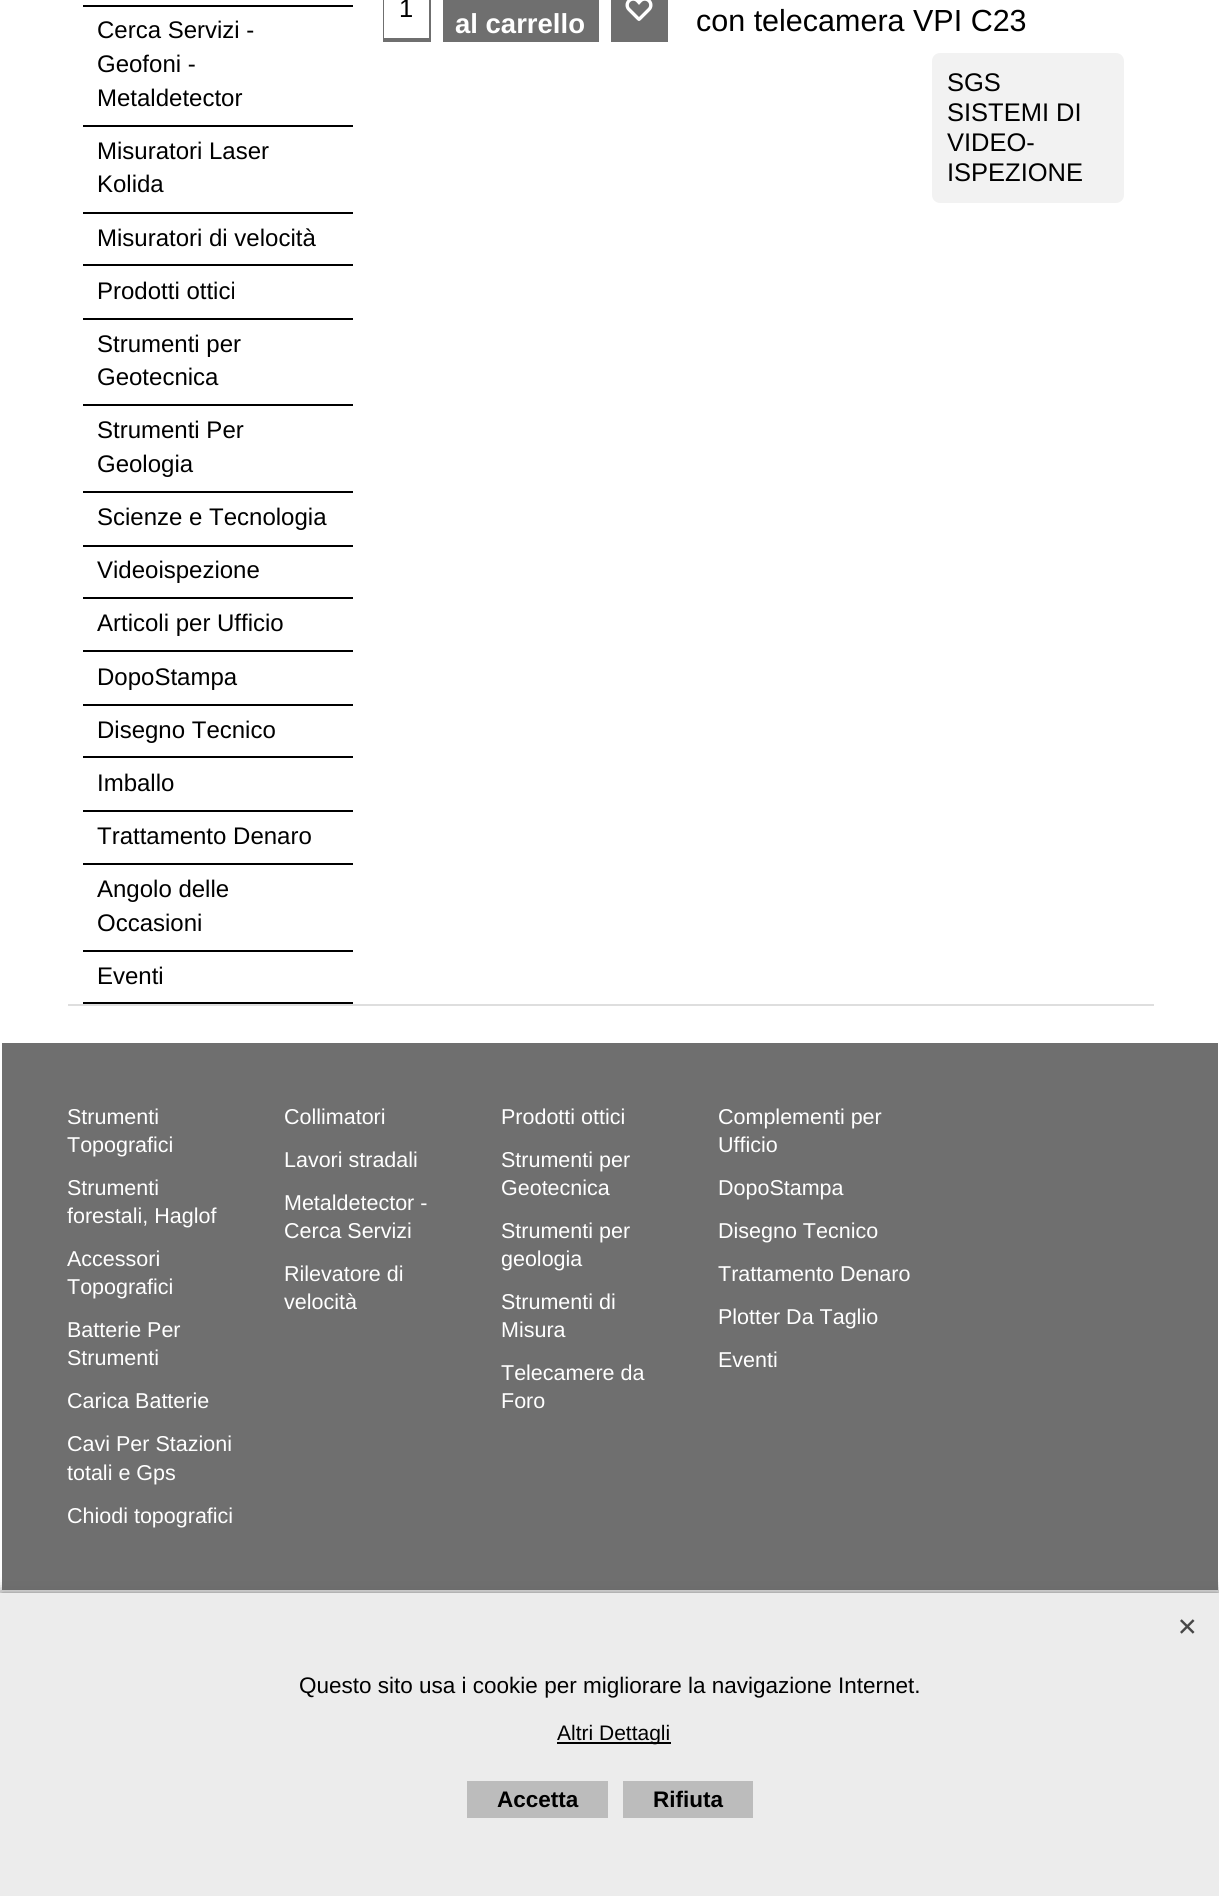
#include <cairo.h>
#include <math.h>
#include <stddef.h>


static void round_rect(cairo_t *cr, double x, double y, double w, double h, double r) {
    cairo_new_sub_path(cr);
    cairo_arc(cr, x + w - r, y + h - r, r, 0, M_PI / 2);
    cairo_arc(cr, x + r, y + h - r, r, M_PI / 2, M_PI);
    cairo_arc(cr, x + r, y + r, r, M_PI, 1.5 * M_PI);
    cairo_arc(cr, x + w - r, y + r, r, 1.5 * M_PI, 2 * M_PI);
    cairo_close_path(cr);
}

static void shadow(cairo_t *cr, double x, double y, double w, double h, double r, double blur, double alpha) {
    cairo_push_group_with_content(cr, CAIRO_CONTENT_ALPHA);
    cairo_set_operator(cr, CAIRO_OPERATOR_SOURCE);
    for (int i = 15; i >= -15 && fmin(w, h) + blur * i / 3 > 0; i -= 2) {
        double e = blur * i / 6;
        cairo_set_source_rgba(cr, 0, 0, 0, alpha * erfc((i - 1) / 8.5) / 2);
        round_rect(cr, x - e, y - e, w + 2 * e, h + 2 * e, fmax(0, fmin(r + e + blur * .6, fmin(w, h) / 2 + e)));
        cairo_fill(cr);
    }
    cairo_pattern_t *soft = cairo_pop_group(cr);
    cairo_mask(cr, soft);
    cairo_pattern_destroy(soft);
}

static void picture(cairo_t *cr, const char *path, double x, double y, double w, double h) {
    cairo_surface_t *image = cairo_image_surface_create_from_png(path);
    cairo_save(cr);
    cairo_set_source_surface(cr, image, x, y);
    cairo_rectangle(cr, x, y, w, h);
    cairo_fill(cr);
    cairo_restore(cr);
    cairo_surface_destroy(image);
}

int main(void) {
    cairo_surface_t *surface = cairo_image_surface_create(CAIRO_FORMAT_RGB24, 1219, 1896);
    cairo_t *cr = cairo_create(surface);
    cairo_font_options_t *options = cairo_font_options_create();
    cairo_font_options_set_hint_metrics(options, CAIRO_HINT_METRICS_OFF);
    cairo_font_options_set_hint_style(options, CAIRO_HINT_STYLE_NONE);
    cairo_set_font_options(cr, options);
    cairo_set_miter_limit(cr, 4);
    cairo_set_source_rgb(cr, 1, 1, 1);
    cairo_paint(cr);
    cairo_set_source_rgb(cr, 0, 0, 0);
    cairo_rectangle(cr, 83, 5, 270, 2);
    cairo_fill(cr);
    cairo_rectangle(cr, 83, 125, 270, 2);
    cairo_fill(cr);
    cairo_select_font_face(cr, "Liberation Sans", CAIRO_FONT_SLANT_NORMAL, CAIRO_FONT_WEIGHT_NORMAL);
    cairo_set_font_size(cr, 24);
    cairo_move_to(cr, 97, 38);
    cairo_show_text(cr, "Cerca Servizi -");
    cairo_move_to(cr, 97, 72);
    cairo_show_text(cr, "Geofoni -");
    cairo_move_to(cr, 97, 106);
    cairo_show_text(cr, "Metaldetector");
    cairo_rectangle(cr, 83, 212, 270, 2);
    cairo_fill(cr);
    cairo_move_to(cr, 97, 159);
    cairo_show_text(cr, "Misuratori Laser");
    cairo_move_to(cr, 97, 192);
    cairo_show_text(cr, "Kolida");
    cairo_rectangle(cr, 83, 264, 270, 2);
    cairo_fill(cr);
    cairo_move_to(cr, 97, 246);
    cairo_show_text(cr, "Misuratori di velocità");
    cairo_rectangle(cr, 83, 318, 270, 2);
    cairo_fill(cr);
    cairo_move_to(cr, 97, 299);
    cairo_show_text(cr, "Prodotti ottici");
    cairo_rectangle(cr, 83, 404, 270, 2);
    cairo_fill(cr);
    cairo_move_to(cr, 97, 352);
    cairo_show_text(cr, "Strumenti per");
    cairo_move_to(cr, 97, 385);
    cairo_show_text(cr, "Geotecnica");
    cairo_rectangle(cr, 83, 491, 270, 2);
    cairo_fill(cr);
    cairo_move_to(cr, 97, 438);
    cairo_show_text(cr, "Strumenti Per");
    cairo_move_to(cr, 97, 472);
    cairo_show_text(cr, "Geologia");
    cairo_rectangle(cr, 83, 545, 270, 2);
    cairo_fill(cr);
    cairo_move_to(cr, 97, 525);
    cairo_show_text(cr, "Scienze e Tecnologia");
    cairo_rectangle(cr, 83, 597, 270, 2);
    cairo_fill(cr);
    cairo_move_to(cr, 97, 578);
    cairo_show_text(cr, "Videoispezione");
    cairo_rectangle(cr, 83, 650, 270, 2);
    cairo_fill(cr);
    cairo_move_to(cr, 97, 631);
    cairo_show_text(cr, "Articoli per Ufficio");
    cairo_rectangle(cr, 83, 704, 270, 2);
    cairo_fill(cr);
    cairo_move_to(cr, 97, 685);
    cairo_show_text(cr, "DopoStampa");
    cairo_rectangle(cr, 83, 756, 270, 2);
    cairo_fill(cr);
    cairo_move_to(cr, 97, 738);
    cairo_show_text(cr, "Disegno Tecnico");
    cairo_rectangle(cr, 83, 810, 270, 2);
    cairo_fill(cr);
    cairo_move_to(cr, 97, 791);
    cairo_show_text(cr, "Imballo");
    cairo_rectangle(cr, 83, 863, 270, 2);
    cairo_fill(cr);
    cairo_move_to(cr, 97, 844);
    cairo_show_text(cr, "Trattamento Denaro");
    cairo_rectangle(cr, 83, 950, 270, 2);
    cairo_fill(cr);
    cairo_move_to(cr, 97, 897);
    cairo_show_text(cr, "Angolo delle");
    cairo_move_to(cr, 97, 931);
    cairo_show_text(cr, "Occasioni");
    cairo_rectangle(cr, 83, 1002, 270, 2);
    cairo_fill(cr);
    cairo_move_to(cr, 97, 984);
    cairo_show_text(cr, "Eventi");
    cairo_set_source_rgb(cr, 0.435, 0.435, 0.435);
    cairo_rectangle(cr, 383, 0, 48, 42);
    cairo_fill(cr);
    cairo_set_source_rgb(cr, 1, 1, 1);
    cairo_rectangle(cr, 384, 0, 45, 38);
    cairo_fill(cr);
    cairo_set_font_size(cr, 25.5);
    cairo_set_source_rgb(cr, 0, 0, 0);
    cairo_move_to(cr, 399, 17);
    cairo_show_text(cr, "1");
    cairo_set_source_rgb(cr, 0.435, 0.435, 0.435);
    cairo_rectangle(cr, 443, 0, 156, 42);
    cairo_fill(cr);
    cairo_select_font_face(cr, "Liberation Sans", CAIRO_FONT_SLANT_NORMAL, CAIRO_FONT_WEIGHT_BOLD);
    cairo_set_font_size(cr, 27.5);
    cairo_set_source_rgb(cr, 1, 1, 1);
    cairo_move_to(cr, 455, 33);
    cairo_show_text(cr, "al carrello");
    cairo_set_source_rgb(cr, 0.435, 0.435, 0.435);
    cairo_rectangle(cr, 611, 0, 57, 42);
    cairo_fill(cr);
    picture(cr, "img1.png", 625, 0, 28, 21);
    cairo_select_font_face(cr, "Liberation Sans", CAIRO_FONT_SLANT_NORMAL, CAIRO_FONT_WEIGHT_NORMAL);
    cairo_set_font_size(cr, 30.5);
    cairo_set_source_rgb(cr, 0, 0, 0);
    cairo_move_to(cr, 696, 31);
    cairo_show_text(cr, "con telecamera VPI C23");
    cairo_set_source_rgb(cr, 0.949, 0.949, 0.949);
    round_rect(cr, 932, 53, 192, 150, 8);
    cairo_fill(cr);
    cairo_set_font_size(cr, 25.5);
    cairo_set_source_rgb(cr, 0, 0, 0);
    cairo_move_to(cr, 947, 91);
    cairo_show_text(cr, "SGS");
    cairo_move_to(cr, 947, 121);
    cairo_show_text(cr, "SISTEMI DI");
    cairo_move_to(cr, 947, 151);
    cairo_show_text(cr, "VIDEO-");
    cairo_move_to(cr, 947, 181);
    cairo_show_text(cr, "ISPEZIONE");
    cairo_set_source_rgb(cr, 0.871, 0.871, 0.871);
    cairo_rectangle(cr, 68, 1004, 1086, 2);
    cairo_fill(cr);
    cairo_set_source_rgb(cr, 0.435, 0.435, 0.435);
    cairo_rectangle(cr, 2, 1043, 1216, 547);
    cairo_fill(cr);
    cairo_set_font_size(cr, 21.5);
    cairo_set_source_rgb(cr, 1, 1, 1);
    cairo_move_to(cr, 67, 1124);
    cairo_show_text(cr, "Strumenti");
    cairo_move_to(cr, 67, 1152);
    cairo_show_text(cr, "Topografici");
    cairo_move_to(cr, 67, 1195);
    cairo_show_text(cr, "Strumenti");
    cairo_move_to(cr, 67, 1223);
    cairo_show_text(cr, "forestali, Haglof");
    cairo_move_to(cr, 67, 1266);
    cairo_show_text(cr, "Accessori");
    cairo_move_to(cr, 67, 1294);
    cairo_show_text(cr, "Topografici");
    cairo_move_to(cr, 67, 1337);
    cairo_show_text(cr, "Batterie Per");
    cairo_move_to(cr, 67, 1365);
    cairo_show_text(cr, "Strumenti");
    cairo_move_to(cr, 67, 1408);
    cairo_show_text(cr, "Carica Batterie");
    cairo_move_to(cr, 67, 1451);
    cairo_show_text(cr, "Cavi Per Stazioni");
    cairo_move_to(cr, 67, 1480);
    cairo_show_text(cr, "totali e Gps");
    cairo_move_to(cr, 67, 1523);
    cairo_show_text(cr, "Chiodi topografici");
    cairo_move_to(cr, 284, 1124);
    cairo_show_text(cr, "Collimatori");
    cairo_move_to(cr, 284, 1167);
    cairo_show_text(cr, "Lavori stradali");
    cairo_move_to(cr, 284, 1210);
    cairo_show_text(cr, "Metaldetector -");
    cairo_move_to(cr, 284, 1238);
    cairo_show_text(cr, "Cerca Servizi");
    cairo_move_to(cr, 284, 1281);
    cairo_show_text(cr, "Rilevatore di");
    cairo_move_to(cr, 284, 1309);
    cairo_show_text(cr, "velocità");
    cairo_move_to(cr, 501, 1124);
    cairo_show_text(cr, "Prodotti ottici");
    cairo_move_to(cr, 501, 1167);
    cairo_show_text(cr, "Strumenti per");
    cairo_move_to(cr, 501, 1195);
    cairo_show_text(cr, "Geotecnica");
    cairo_move_to(cr, 501, 1238);
    cairo_show_text(cr, "Strumenti per");
    cairo_move_to(cr, 501, 1266);
    cairo_show_text(cr, "geologia");
    cairo_move_to(cr, 501, 1309);
    cairo_show_text(cr, "Strumenti di");
    cairo_move_to(cr, 501, 1337);
    cairo_show_text(cr, "Misura");
    cairo_move_to(cr, 501, 1380);
    cairo_show_text(cr, "Telecamere da");
    cairo_move_to(cr, 501, 1408);
    cairo_show_text(cr, "Foro");
    cairo_move_to(cr, 718, 1124);
    cairo_show_text(cr, "Complementi per");
    cairo_move_to(cr, 718, 1152);
    cairo_show_text(cr, "Ufficio");
    cairo_move_to(cr, 718, 1195);
    cairo_show_text(cr, "DopoStampa");
    cairo_move_to(cr, 718, 1238);
    cairo_show_text(cr, "Disegno Tecnico");
    cairo_move_to(cr, 718, 1281);
    cairo_show_text(cr, "Trattamento Denaro");
    cairo_move_to(cr, 718, 1324);
    cairo_show_text(cr, "Plotter Da Taglio");
    cairo_move_to(cr, 718, 1367);
    cairo_show_text(cr, "Eventi");
    cairo_set_source_rgb(cr, 0.4, 0.4, 0.4);
    shadow(cr, 0, 1593, 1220, 303, 0, 7.5, 1);
    cairo_set_source_rgb(cr, 0.922, 0.922, 0.922);
    cairo_rectangle(cr, 0, 1593, 1219, 303);
    cairo_fill(cr);
    picture(cr, "img2.png", 1180, 1619, 15, 15);
    cairo_set_font_size(cr, 22.5);
    cairo_set_source_rgb(cr, 0, 0, 0);
    cairo_move_to(cr, 299, 1693);
    cairo_show_text(cr, "Questo sito usa i cookie per migliorare la navigazione Internet.");
    cairo_rectangle(cr, 557, 1742, 114, 2);
    cairo_fill(cr);
    cairo_set_font_size(cr, 21);
    cairo_move_to(cr, 557, 1740);
    cairo_show_text(cr, "Altri Dettagli");
    cairo_set_source_rgb(cr, 0.737, 0.737, 0.737);
    cairo_rectangle(cr, 467, 1781, 141, 37);
    cairo_fill(cr);
    cairo_select_font_face(cr, "Liberation Sans", CAIRO_FONT_SLANT_NORMAL, CAIRO_FONT_WEIGHT_BOLD);
    cairo_set_font_size(cr, 22.5);
    cairo_set_source_rgb(cr, 0, 0, 0);
    cairo_move_to(cr, 497, 1807);
    cairo_show_text(cr, "Accetta");
    cairo_set_source_rgb(cr, 0.737, 0.737, 0.737);
    cairo_rectangle(cr, 623, 1781, 130, 37);
    cairo_fill(cr);
    cairo_set_source_rgb(cr, 0, 0, 0);
    cairo_move_to(cr, 653, 1807);
    cairo_show_text(cr, "Rifiuta");
    cairo_surface_write_to_png(surface, "page.png");
    cairo_font_options_destroy(options);
    cairo_destroy(cr);
    cairo_surface_destroy(surface);
    return 0;
}
